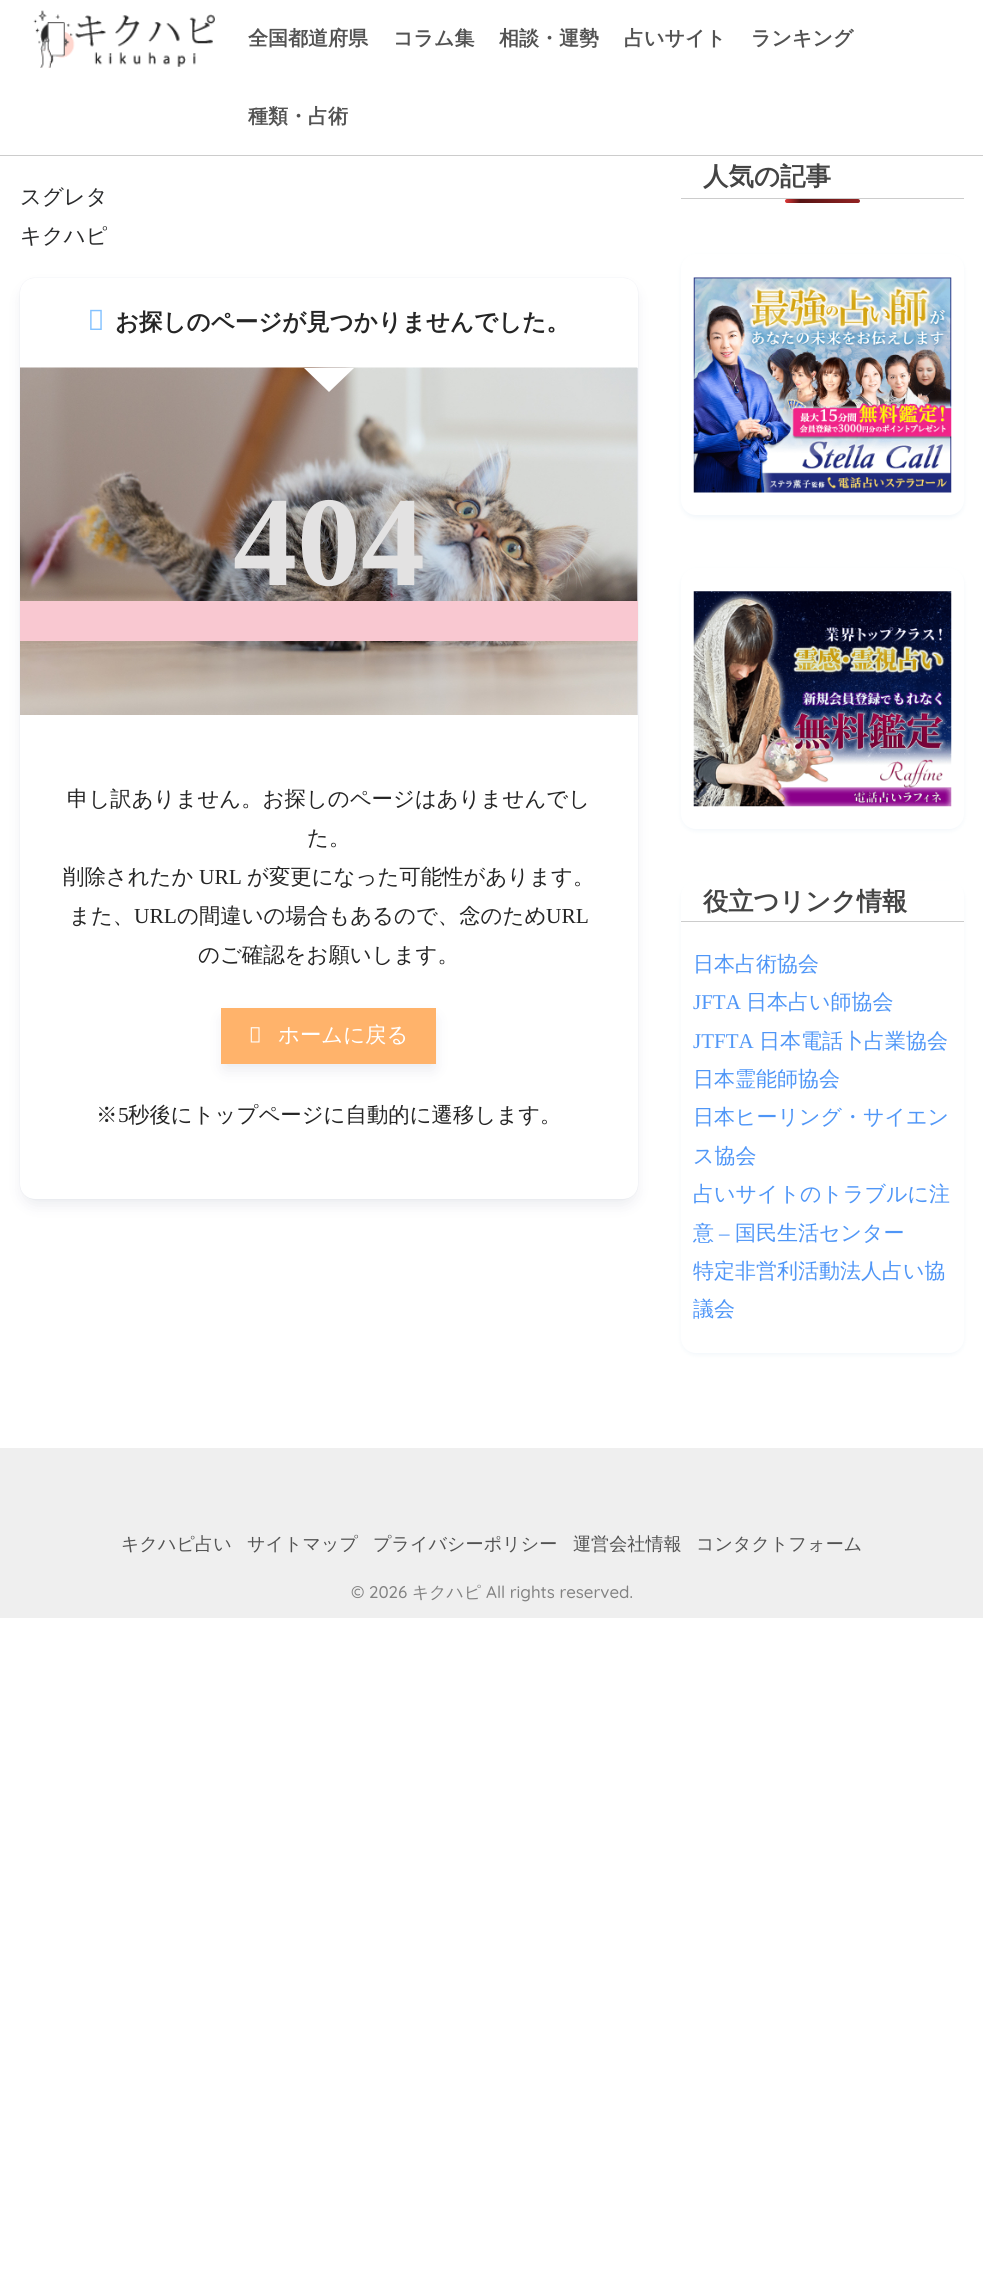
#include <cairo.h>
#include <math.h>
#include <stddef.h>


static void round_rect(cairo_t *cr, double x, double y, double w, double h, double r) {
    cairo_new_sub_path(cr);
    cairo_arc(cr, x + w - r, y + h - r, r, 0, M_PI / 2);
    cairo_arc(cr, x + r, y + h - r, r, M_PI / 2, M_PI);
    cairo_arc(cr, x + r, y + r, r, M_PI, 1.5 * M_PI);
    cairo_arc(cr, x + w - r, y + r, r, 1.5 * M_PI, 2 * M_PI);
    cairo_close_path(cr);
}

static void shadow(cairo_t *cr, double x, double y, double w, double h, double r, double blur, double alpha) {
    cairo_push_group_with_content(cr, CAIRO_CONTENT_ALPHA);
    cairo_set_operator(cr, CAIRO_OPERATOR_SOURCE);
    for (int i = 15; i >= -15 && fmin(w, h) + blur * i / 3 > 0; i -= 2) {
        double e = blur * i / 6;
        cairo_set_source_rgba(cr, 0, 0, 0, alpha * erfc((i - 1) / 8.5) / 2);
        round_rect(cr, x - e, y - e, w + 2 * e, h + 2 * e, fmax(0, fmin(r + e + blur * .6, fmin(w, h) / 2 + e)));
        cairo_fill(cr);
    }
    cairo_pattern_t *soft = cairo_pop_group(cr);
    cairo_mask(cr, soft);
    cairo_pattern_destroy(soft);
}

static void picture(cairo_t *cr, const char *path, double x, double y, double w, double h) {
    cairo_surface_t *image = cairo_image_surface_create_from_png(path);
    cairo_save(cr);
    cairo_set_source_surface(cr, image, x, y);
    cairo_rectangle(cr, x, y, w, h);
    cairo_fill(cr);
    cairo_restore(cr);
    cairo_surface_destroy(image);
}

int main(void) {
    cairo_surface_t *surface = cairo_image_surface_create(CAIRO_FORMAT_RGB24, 983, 2287);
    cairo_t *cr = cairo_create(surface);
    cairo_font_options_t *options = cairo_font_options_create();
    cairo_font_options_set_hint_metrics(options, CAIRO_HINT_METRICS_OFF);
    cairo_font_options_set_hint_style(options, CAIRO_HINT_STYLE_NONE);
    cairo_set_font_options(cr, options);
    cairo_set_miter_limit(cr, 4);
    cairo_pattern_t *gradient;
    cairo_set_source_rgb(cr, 1, 1, 1);
    cairo_paint(cr);
    cairo_set_source_rgb(cr, 0.8, 0.8, 0.8);
    cairo_rectangle(cr, 0, 155, 983, 1);
    cairo_fill(cr);
    picture(cr, "img1.png", 33, 10, 182, 58);
    cairo_select_font_face(cr, "WenQuanYi Zen Hei", CAIRO_FONT_SLANT_NORMAL, CAIRO_FONT_WEIGHT_BOLD);
    cairo_set_font_size(cr, 20);
    cairo_set_source_rgb(cr, 0.325, 0.325, 0.325);
    cairo_move_to(cr, 248, 45);
    cairo_show_text(cr, "全国都道府県");
    cairo_move_to(cr, 393, 45);
    cairo_show_text(cr, "コラム集");
    cairo_move_to(cr, 499, 45);
    cairo_show_text(cr, "相談・運勢");
    cairo_move_to(cr, 624, 45);
    cairo_show_text(cr, "占いサイト");
    cairo_move_to(cr, 751, 45);
    cairo_show_text(cr, "ランキング");
    cairo_move_to(cr, 248, 123);
    cairo_show_text(cr, "種類・占術");
    cairo_select_font_face(cr, "WenQuanYi Zen Hei Medium", CAIRO_FONT_SLANT_NORMAL, CAIRO_FONT_WEIGHT_NORMAL);
    cairo_set_font_size(cr, 21.4);
    cairo_set_source_rgb(cr, 0.165, 0.169, 0.173);
    cairo_move_to(cr, 20, 204);
    cairo_show_text(cr, "スグレタ");
    cairo_move_to(cr, 20, 243);
    cairo_show_text(cr, "キクハピ");
    cairo_set_source_rgb(cr, 0, 0.118, 0.392);
    shadow(cr, 20, 278, 618, 921, 15, 0.5, 0.1);
    cairo_set_source_rgb(cr, 0, 0.047, 0.259);
    shadow(cr, 24, 289, 610, 914, 11, 8, 0.1);
    cairo_set_source_rgb(cr, 1, 1, 1);
    cairo_new_path(cr);
    cairo_move_to(cr, 35, 278);
    cairo_line_to(cr, 623, 278);
    cairo_curve_to(cr, 631.5, 278, 638, 284.5, 638, 293);
    cairo_line_to(cr, 638, 368);
    cairo_line_to(cr, 20, 368);
    cairo_line_to(cr, 20, 293);
    cairo_curve_to(cr, 20, 284.5, 26.5, 278, 35, 278);
    cairo_close_path(cr);
    cairo_fill(cr);
    picture(cr, "img2.png", 90, 309, 12, 21);
    cairo_select_font_face(cr, "WenQuanYi Zen Hei", CAIRO_FONT_SLANT_NORMAL, CAIRO_FONT_WEIGHT_BOLD);
    cairo_set_font_size(cr, 23.5);
    cairo_set_source_rgb(cr, 0.145, 0.145, 0.145);
    cairo_move_to(cr, 115, 330);
    cairo_show_text(cr, "お探しのページが見つかりませんでした。");
    picture(cr, "img3.png", 20, 367, 618, 348);
    cairo_set_source_rgb(cr, 1, 1, 1);
    cairo_new_path(cr);
    cairo_move_to(cr, 304, 368);
    cairo_line_to(cr, 354, 368);
    cairo_line_to(cr, 329, 392);
    cairo_close_path(cr);
    cairo_fill(cr);
    cairo_set_source_rgb(cr, 0.973, 0.784, 0.82);
    cairo_rectangle(cr, 20, 601, 618, 40);
    cairo_fill(cr);
    cairo_select_font_face(cr, "Liberation Serif", CAIRO_FONT_SLANT_NORMAL, CAIRO_FONT_WEIGHT_BOLD);
    cairo_set_font_size(cr, 128);
    cairo_set_source_rgb(cr, 0.89, 0.886, 0.886);
    cairo_move_to(cr, 233, 585);
    cairo_show_text(cr, "404");
    cairo_set_source_rgb(cr, 1, 1, 1);
    cairo_new_path(cr);
    cairo_move_to(cr, 20, 715);
    cairo_line_to(cr, 638, 715);
    cairo_line_to(cr, 638, 1184);
    cairo_curve_to(cr, 638, 1192.5, 631.5, 1199, 623, 1199);
    cairo_line_to(cr, 35, 1199);
    cairo_curve_to(cr, 26.5, 1199, 20, 1192.5, 20, 1184);
    cairo_close_path(cr);
    cairo_fill(cr);
    cairo_select_font_face(cr, "WenQuanYi Zen Hei Medium", CAIRO_FONT_SLANT_NORMAL, CAIRO_FONT_WEIGHT_NORMAL);
    cairo_set_font_size(cr, 21.4);
    cairo_set_source_rgb(cr, 0.145, 0.145, 0.145);
    cairo_move_to(cr, 67, 806);
    cairo_show_text(cr, "申し訳ありません。お探しのページはありませんでし");
    cairo_move_to(cr, 307, 845);
    cairo_show_text(cr, "た。");
    cairo_move_to(cr, 63, 884);
    cairo_show_text(cr, "削除されたか");
    cairo_select_font_face(cr, "Liberation Serif", CAIRO_FONT_SLANT_NORMAL, CAIRO_FONT_WEIGHT_NORMAL);
    cairo_move_to(cr, 199, 884);
    cairo_show_text(cr, "URL");
    cairo_select_font_face(cr, "WenQuanYi Zen Hei Medium", CAIRO_FONT_SLANT_NORMAL, CAIRO_FONT_WEIGHT_NORMAL);
    cairo_move_to(cr, 247, 884);
    cairo_show_text(cr, "が変更になった可能性があります。");
    cairo_move_to(cr, 69, 923);
    cairo_show_text(cr, "また、");
    cairo_select_font_face(cr, "Liberation Serif", CAIRO_FONT_SLANT_NORMAL, CAIRO_FONT_WEIGHT_NORMAL);
    cairo_move_to(cr, 134, 923);
    cairo_show_text(cr, "URL");
    cairo_select_font_face(cr, "WenQuanYi Zen Hei Medium", CAIRO_FONT_SLANT_NORMAL, CAIRO_FONT_WEIGHT_NORMAL);
    cairo_move_to(cr, 177, 923);
    cairo_show_text(cr, "の間違いの場合もあるので、念のため");
    cairo_select_font_face(cr, "Liberation Serif", CAIRO_FONT_SLANT_NORMAL, CAIRO_FONT_WEIGHT_NORMAL);
    cairo_move_to(cr, 546, 923);
    cairo_show_text(cr, "URL");
    cairo_select_font_face(cr, "WenQuanYi Zen Hei Medium", CAIRO_FONT_SLANT_NORMAL, CAIRO_FONT_WEIGHT_NORMAL);
    cairo_move_to(cr, 198, 962);
    cairo_show_text(cr, "のご確認をお願いします。");
    cairo_set_source_rgb(cr, 0, 0.047, 0.259);
    shadow(cr, 225, 1019, 208, 49, 0, 8, 0.1);
    cairo_set_source_rgb(cr, 1, 0.702, 0.42);
    cairo_rectangle(cr, 221, 1008, 215, 56);
    cairo_fill(cr);
    picture(cr, "img4.png", 250, 1027, 10, 16);
    cairo_set_source_rgb(cr, 1, 1, 1);
    cairo_move_to(cr, 278, 1042);
    cairo_show_text(cr, "ホームに戻る");
    cairo_set_source_rgb(cr, 0.145, 0.145, 0.145);
    cairo_move_to(cr, 96, 1122);
    cairo_show_text(cr, "※");
    cairo_select_font_face(cr, "Liberation Serif", CAIRO_FONT_SLANT_NORMAL, CAIRO_FONT_WEIGHT_NORMAL);
    cairo_move_to(cr, 118, 1122);
    cairo_show_text(cr, "5");
    cairo_select_font_face(cr, "WenQuanYi Zen Hei Medium", CAIRO_FONT_SLANT_NORMAL, CAIRO_FONT_WEIGHT_NORMAL);
    cairo_move_to(cr, 128, 1122);
    cairo_show_text(cr, "秒後にトップページに自動的に遷移します。");
    cairo_set_source_rgb(cr, 0.8, 0.8, 0.8);
    cairo_rectangle(cr, 681, 198, 283, 1);
    cairo_fill(cr);
    cairo_select_font_face(cr, "WenQuanYi Zen Hei", CAIRO_FONT_SLANT_NORMAL, CAIRO_FONT_WEIGHT_BOLD);
    cairo_set_font_size(cr, 25.5);
    cairo_set_source_rgb(cr, 0.267, 0.267, 0.267);
    cairo_move_to(cr, 703, 185);
    cairo_show_text(cr, "人気の記事");
    gradient = cairo_pattern_create_linear(785, 201, 935, 201);
    cairo_pattern_add_color_stop_rgba(gradient, 0, 0.867, 0.216, 0.216, 1);
    cairo_pattern_add_color_stop_rgba(gradient, 0.1, 0.341, 0.075, 0.075, 1);
    cairo_pattern_add_color_stop_rgba(gradient, 1, 0.867, 0.216, 0.216, 1);
    cairo_set_source(cr, gradient);
    cairo_pattern_destroy(gradient);
    round_rect(cr, 785, 199, 75, 4, 2);
    cairo_fill(cr);
    cairo_set_source_rgb(cr, 0.263, 0.522, 0.733);
    shadow(cr, 681, 256, 283, 262, 15, 2.5, 0.07);
    cairo_set_source_rgb(cr, 1, 1, 1);
    round_rect(cr, 681, 254, 283, 261, 15);
    cairo_fill(cr);
    picture(cr, "img5.png", 693, 277, 259, 216);
    cairo_set_source_rgb(cr, 0.263, 0.522, 0.733);
    shadow(cr, 681, 570, 283, 261, 15, 2.5, 0.07);
    cairo_set_source_rgb(cr, 1, 1, 1);
    round_rect(cr, 681, 568, 283, 261, 15);
    cairo_fill(cr);
    picture(cr, "img6.png", 693, 591, 259, 216);
    cairo_set_source_rgb(cr, 0.263, 0.522, 0.733);
    shadow(cr, 681, 884, 283, 471, 15, 2.5, 0.07);
    cairo_set_source_rgb(cr, 1, 1, 1);
    round_rect(cr, 681, 881, 283, 472, 15);
    cairo_fill(cr);
    cairo_set_source_rgb(cr, 0.8, 0.8, 0.8);
    cairo_rectangle(cr, 681, 921, 283, 1);
    cairo_fill(cr);
    cairo_set_font_size(cr, 25.25);
    cairo_set_source_rgb(cr, 0.267, 0.267, 0.267);
    cairo_move_to(cr, 703, 910);
    cairo_show_text(cr, "役立つリンク情報");
    cairo_select_font_face(cr, "WenQuanYi Zen Hei Medium", CAIRO_FONT_SLANT_NORMAL, CAIRO_FONT_WEIGHT_NORMAL);
    cairo_set_font_size(cr, 21);
    cairo_set_source_rgb(cr, 0.31, 0.588, 0.965);
    cairo_move_to(cr, 693, 971);
    cairo_show_text(cr, "日本占術協会");
    cairo_select_font_face(cr, "Liberation Serif", CAIRO_FONT_SLANT_NORMAL, CAIRO_FONT_WEIGHT_NORMAL);
    cairo_move_to(cr, 693, 1009);
    cairo_show_text(cr, "JFTA");
    cairo_select_font_face(cr, "WenQuanYi Zen Hei Medium", CAIRO_FONT_SLANT_NORMAL, CAIRO_FONT_WEIGHT_NORMAL);
    cairo_move_to(cr, 746, 1009);
    cairo_show_text(cr, "日本占い師協会");
    cairo_select_font_face(cr, "Liberation Serif", CAIRO_FONT_SLANT_NORMAL, CAIRO_FONT_WEIGHT_NORMAL);
    cairo_move_to(cr, 693, 1048);
    cairo_show_text(cr, "JTFTA");
    cairo_select_font_face(cr, "WenQuanYi Zen Hei Medium", CAIRO_FONT_SLANT_NORMAL, CAIRO_FONT_WEIGHT_NORMAL);
    cairo_move_to(cr, 759, 1048);
    cairo_show_text(cr, "日本電話卜占業協会");
    cairo_move_to(cr, 693, 1086);
    cairo_show_text(cr, "日本霊能師協会");
    cairo_move_to(cr, 693, 1124);
    cairo_show_text(cr, "日本ヒーリング・サイエン");
    cairo_move_to(cr, 693, 1163);
    cairo_show_text(cr, "ス協会");
    cairo_move_to(cr, 693, 1201);
    cairo_show_text(cr, "占いサイトのトラブルに注");
    cairo_move_to(cr, 693, 1240);
    cairo_show_text(cr, "意");
    cairo_select_font_face(cr, "Liberation Serif", CAIRO_FONT_SLANT_NORMAL, CAIRO_FONT_WEIGHT_NORMAL);
    cairo_move_to(cr, 719, 1240);
    cairo_show_text(cr, "–");
    cairo_select_font_face(cr, "WenQuanYi Zen Hei Medium", CAIRO_FONT_SLANT_NORMAL, CAIRO_FONT_WEIGHT_NORMAL);
    cairo_move_to(cr, 735, 1240);
    cairo_show_text(cr, "国民生活センター");
    cairo_move_to(cr, 693, 1278);
    cairo_show_text(cr, "特定非営利活動法人占い協");
    cairo_move_to(cr, 693, 1316);
    cairo_show_text(cr, "議会");
    cairo_set_source_rgb(cr, 0.937, 0.937, 0.937);
    cairo_rectangle(cr, 0, 1448, 983, 170);
    cairo_fill(cr);
    cairo_set_font_size(cr, 18.1);
    cairo_set_source_rgb(cr, 0.325, 0.325, 0.325);
    cairo_move_to(cr, 121, 1550);
    cairo_show_text(cr, "キクハピ占い");
    cairo_move_to(cr, 247, 1550);
    cairo_show_text(cr, "サイトマップ");
    cairo_move_to(cr, 373, 1550);
    cairo_show_text(cr, "プライバシーポリシー");
    cairo_move_to(cr, 573, 1550);
    cairo_show_text(cr, "運営会社情報");
    cairo_move_to(cr, 696, 1550);
    cairo_show_text(cr, "コンタクトフォーム");
    cairo_select_font_face(cr, "Quicksand Medium", CAIRO_FONT_SLANT_NORMAL, CAIRO_FONT_WEIGHT_NORMAL);
    cairo_set_font_size(cr, 16.9);
    cairo_set_source_rgb(cr, 0.51, 0.51, 0.51);
    cairo_move_to(cr, 351, 1598);
    cairo_show_text(cr, "© 2026");
    cairo_select_font_face(cr, "WenQuanYi Zen Hei Medium", CAIRO_FONT_SLANT_NORMAL, CAIRO_FONT_WEIGHT_NORMAL);
    cairo_move_to(cr, 412, 1598);
    cairo_show_text(cr, "キクハピ");
    cairo_select_font_face(cr, "Quicksand Medium", CAIRO_FONT_SLANT_NORMAL, CAIRO_FONT_WEIGHT_NORMAL);
    cairo_move_to(cr, 486, 1598);
    cairo_show_text(cr, "All rights reserved.");
    cairo_surface_write_to_png(surface, "page.png");
    cairo_font_options_destroy(options);
    cairo_destroy(cr);
    cairo_surface_destroy(surface);
    return 0;
}
